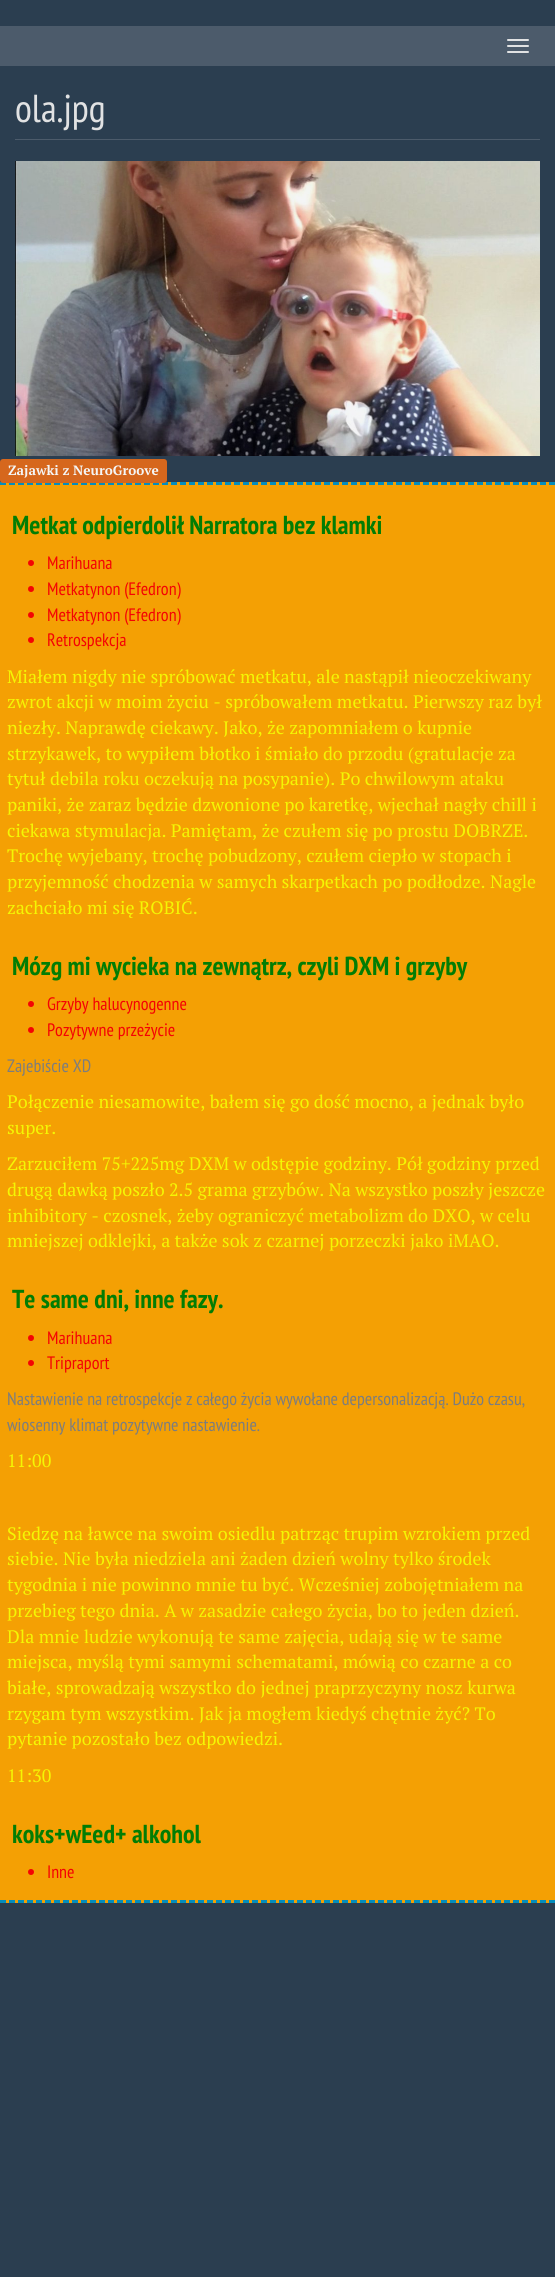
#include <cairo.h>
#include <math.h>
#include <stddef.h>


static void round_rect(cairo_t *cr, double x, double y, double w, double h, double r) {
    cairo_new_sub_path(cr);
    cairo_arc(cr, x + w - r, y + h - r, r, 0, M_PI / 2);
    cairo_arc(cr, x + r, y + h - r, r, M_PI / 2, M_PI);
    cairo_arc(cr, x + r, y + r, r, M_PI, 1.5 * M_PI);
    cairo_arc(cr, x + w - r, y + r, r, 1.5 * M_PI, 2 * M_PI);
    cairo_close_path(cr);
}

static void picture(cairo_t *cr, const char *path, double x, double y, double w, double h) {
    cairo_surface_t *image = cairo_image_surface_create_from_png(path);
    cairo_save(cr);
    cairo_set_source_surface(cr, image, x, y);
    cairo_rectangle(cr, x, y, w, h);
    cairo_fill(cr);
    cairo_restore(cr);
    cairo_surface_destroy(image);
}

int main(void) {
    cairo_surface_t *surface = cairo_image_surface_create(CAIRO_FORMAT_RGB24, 555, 2277);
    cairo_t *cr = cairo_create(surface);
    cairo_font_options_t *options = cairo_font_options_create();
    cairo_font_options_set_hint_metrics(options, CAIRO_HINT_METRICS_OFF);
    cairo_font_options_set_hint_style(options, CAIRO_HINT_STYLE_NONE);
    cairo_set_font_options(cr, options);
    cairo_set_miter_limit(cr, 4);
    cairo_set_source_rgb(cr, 0.169, 0.243, 0.314);
    cairo_paint(cr);
    cairo_set_source_rgb(cr, 0.298, 0.357, 0.42);
    cairo_rectangle(cr, 0, 26, 555, 40);
    cairo_fill(cr);
    cairo_set_source_rgb(cr, 0.882, 0.886, 0.89);
    round_rect(cr, 507, 39, 22, 2, 1);
    cairo_fill(cr);
    round_rect(cr, 507, 45, 22, 2, 1);
    cairo_fill(cr);
    round_rect(cr, 507, 51, 22, 2, 1);
    cairo_fill(cr);
    cairo_set_source_rgb(cr, 0.298, 0.357, 0.42);
    cairo_rectangle(cr, 15, 139, 525, 1);
    cairo_fill(cr);
    cairo_select_font_face(cr, "PT Sans Narrow", CAIRO_FONT_SLANT_NORMAL, CAIRO_FONT_WEIGHT_NORMAL);
    cairo_set_font_size(cr, 39);
    cairo_set_source_rgb(cr, 0.882, 0.886, 0.89);
    cairo_move_to(cr, 15, 122);
    cairo_show_text(cr, "ola.jpg");
    picture(cr, "img1.png", 15, 161, 525, 295);
    cairo_set_source_rgb(cr, 0.957, 0.627, 0.016);
    cairo_rectangle(cr, 0, 482, 555, 1421);
    cairo_fill(cr);
    cairo_new_path(cr);
    cairo_move_to(cr, 0, 483.5);
    cairo_line_to(cr, 555, 483.5);
    cairo_set_source_rgb(cr, 0.016, 0.553, 0.741);
    cairo_set_line_width(cr, 3);
    cairo_set_dash(cr, (double[]){6, 3}, 2, 0);
    cairo_stroke(cr);
    cairo_set_source_rgb(cr, 0.839, 0.404, 0.114);
    round_rect(cr, 0, 459, 167, 24, 3);
    cairo_fill(cr);
    cairo_select_font_face(cr, "PT Serif", CAIRO_FONT_SLANT_NORMAL, CAIRO_FONT_WEIGHT_BOLD);
    cairo_set_font_size(cr, 13.5);
    cairo_set_source_rgb(cr, 0.957, 0.961, 0.965);
    cairo_move_to(cr, 8, 475);
    cairo_show_text(cr, "Zajawki z NeuroGroove");
    cairo_new_path(cr);
    cairo_move_to(cr, 0, 1901.5);
    cairo_line_to(cr, 555, 1901.5);
    cairo_set_source_rgb(cr, 0.016, 0.553, 0.741);
    cairo_stroke(cr);
    cairo_select_font_face(cr, "PT Sans Narrow", CAIRO_FONT_SLANT_NORMAL, CAIRO_FONT_WEIGHT_BOLD);
    cairo_set_font_size(cr, 26);
    cairo_set_source_rgb(cr, 0.008, 0.49, 0.016);
    cairo_move_to(cr, 12, 534);
    cairo_show_text(cr, "Metkat odpierdolił Narratora bez klamki");
    cairo_set_source_rgb(cr, 0.957, 0.012, 0.016);
    cairo_new_path(cr);
    cairo_arc(cr, 31, 563, 3, 0, 2 * M_PI);
    cairo_fill(cr);
    cairo_select_font_face(cr, "PT Sans Narrow", CAIRO_FONT_SLANT_NORMAL, CAIRO_FONT_WEIGHT_NORMAL);
    cairo_set_font_size(cr, 18);
    cairo_move_to(cr, 47, 569);
    cairo_show_text(cr, "Marihuana");
    cairo_new_path(cr);
    cairo_arc(cr, 31, 589, 3, 0, 2 * M_PI);
    cairo_fill(cr);
    cairo_move_to(cr, 47, 595);
    cairo_show_text(cr, "Metkatynon (Efedron)");
    cairo_new_path(cr);
    cairo_arc(cr, 31, 615, 3, 0, 2 * M_PI);
    cairo_fill(cr);
    cairo_move_to(cr, 47, 621);
    cairo_show_text(cr, "Metkatynon (Efedron)");
    cairo_new_path(cr);
    cairo_arc(cr, 31, 640, 3, 0, 2 * M_PI);
    cairo_fill(cr);
    cairo_move_to(cr, 47, 646);
    cairo_show_text(cr, "Retrospekcja");
    cairo_select_font_face(cr, "PT Serif", CAIRO_FONT_SLANT_NORMAL, CAIRO_FONT_WEIGHT_NORMAL);
    cairo_set_source_rgb(cr, 0.957, 0.961, 0.016);
    cairo_move_to(cr, 7, 683);
    cairo_show_text(cr, "Miałem nigdy nie spróbować metkatu, ale nastąpił nieoczekiwany");
    cairo_move_to(cr, 7, 708);
    cairo_show_text(cr, "zwrot akcji w moim życiu - spróbowałem metkatu. Pierwszy raz był");
    cairo_move_to(cr, 7, 734);
    cairo_show_text(cr, "niezły. Naprawdę ciekawy. Jako, że zapomniałem o kupnie");
    cairo_move_to(cr, 7, 760);
    cairo_show_text(cr, "strzykawek, to wypiłem błotko i śmiało do przodu (gratulacje za");
    cairo_move_to(cr, 7, 785);
    cairo_show_text(cr, "tytuł debila roku oczekują na posypanie). Po chwilowym ataku");
    cairo_move_to(cr, 7, 811);
    cairo_show_text(cr, "paniki, że zaraz będzie dzwonione po karetkę, wjechał nagły chill i");
    cairo_move_to(cr, 7, 837);
    cairo_show_text(cr, "ciekawa stymulacja. Pamiętam, że czułem się po prostu DOBRZE.");
    cairo_move_to(cr, 7, 862);
    cairo_show_text(cr, "Trochę wyjebany, trochę pobudzony, czułem ciepło w stopach i");
    cairo_move_to(cr, 7, 888);
    cairo_show_text(cr, "przyjemność chodzenia w samych skarpetkach po podłodze. Nagle");
    cairo_move_to(cr, 7, 914);
    cairo_show_text(cr, "zachciało mi się ROBIĆ.");
    cairo_select_font_face(cr, "PT Sans Narrow", CAIRO_FONT_SLANT_NORMAL, CAIRO_FONT_WEIGHT_BOLD);
    cairo_set_font_size(cr, 26);
    cairo_set_source_rgb(cr, 0.008, 0.49, 0.016);
    cairo_move_to(cr, 12, 975);
    cairo_show_text(cr, "Mózg mi wycieka na zewnątrz, czyli DXM i grzyby");
    cairo_set_source_rgb(cr, 0.957, 0.012, 0.016);
    cairo_new_path(cr);
    cairo_arc(cr, 31, 1004, 3, 0, 2 * M_PI);
    cairo_fill(cr);
    cairo_select_font_face(cr, "PT Sans Narrow", CAIRO_FONT_SLANT_NORMAL, CAIRO_FONT_WEIGHT_NORMAL);
    cairo_set_font_size(cr, 18);
    cairo_move_to(cr, 47, 1010);
    cairo_show_text(cr, "Grzyby halucynogenne");
    cairo_new_path(cr);
    cairo_arc(cr, 31, 1030, 3, 0, 2 * M_PI);
    cairo_fill(cr);
    cairo_move_to(cr, 47, 1036);
    cairo_show_text(cr, "Pozytywne przeżycie");
    cairo_set_source_rgb(cr, 0.486, 0.49, 0.494);
    cairo_move_to(cr, 7, 1072);
    cairo_show_text(cr, "Zajebiście XD");
    cairo_select_font_face(cr, "PT Serif", CAIRO_FONT_SLANT_NORMAL, CAIRO_FONT_WEIGHT_NORMAL);
    cairo_set_source_rgb(cr, 0.957, 0.961, 0.016);
    cairo_move_to(cr, 7, 1108);
    cairo_show_text(cr, "Połączenie niesamowite, bałem się go dość mocno, a jednak było");
    cairo_move_to(cr, 7, 1134);
    cairo_show_text(cr, "super.");
    cairo_move_to(cr, 7, 1170);
    cairo_show_text(cr, "Zarzuciłem 75+225mg DXM w odstępie godziny. Pół godziny przed");
    cairo_move_to(cr, 7, 1196);
    cairo_show_text(cr, "drugą dawką poszło 2.5 grama grzybów. Na wszystko poszły jeszcze");
    cairo_move_to(cr, 7, 1222);
    cairo_show_text(cr, "inhibitory - czosnek, żeby ograniczyć metabolizm do DXO, w celu");
    cairo_move_to(cr, 7, 1247);
    cairo_show_text(cr, "mniejszej odklejki, a także sok z czarnej porzeczki jako iMAO.");
    cairo_select_font_face(cr, "PT Sans Narrow", CAIRO_FONT_SLANT_NORMAL, CAIRO_FONT_WEIGHT_BOLD);
    cairo_set_font_size(cr, 26);
    cairo_set_source_rgb(cr, 0.008, 0.49, 0.016);
    cairo_move_to(cr, 12, 1308);
    cairo_show_text(cr, "Te same dni, inne fazy.");
    cairo_set_source_rgb(cr, 0.957, 0.012, 0.016);
    cairo_new_path(cr);
    cairo_arc(cr, 31, 1338, 3, 0, 2 * M_PI);
    cairo_fill(cr);
    cairo_select_font_face(cr, "PT Sans Narrow", CAIRO_FONT_SLANT_NORMAL, CAIRO_FONT_WEIGHT_NORMAL);
    cairo_set_font_size(cr, 18);
    cairo_move_to(cr, 47, 1344);
    cairo_show_text(cr, "Marihuana");
    cairo_new_path(cr);
    cairo_arc(cr, 31, 1363, 3, 0, 2 * M_PI);
    cairo_fill(cr);
    cairo_move_to(cr, 47, 1369);
    cairo_show_text(cr, "Tripraport");
    cairo_set_source_rgb(cr, 0.486, 0.49, 0.494);
    cairo_move_to(cr, 7, 1405);
    cairo_show_text(cr, "Nastawienie na retrospekcje z całego życia wywołane depersonalizacją. Dużo czasu,");
    cairo_move_to(cr, 7, 1431);
    cairo_show_text(cr, "wiosenny klimat pozytywne nastawienie.");
    cairo_select_font_face(cr, "PT Serif", CAIRO_FONT_SLANT_NORMAL, CAIRO_FONT_WEIGHT_NORMAL);
    cairo_set_source_rgb(cr, 0.957, 0.961, 0.016);
    cairo_move_to(cr, 7, 1467);
    cairo_show_text(cr, "11:00");
    cairo_move_to(cr, 7, 1540);
    cairo_show_text(cr, "Siedzę na ławce na swoim osiedlu patrząc trupim wzrokiem przed");
    cairo_move_to(cr, 7, 1565);
    cairo_show_text(cr, "siebie. Nie była niedziela ani żaden dzień wolny tylko środek");
    cairo_move_to(cr, 7, 1591);
    cairo_show_text(cr, "tygodnia i nie powinno mnie tu być. Wcześniej zobojętniałem na");
    cairo_move_to(cr, 7, 1617);
    cairo_show_text(cr, "przebieg tego dnia. A w zasadzie całego życia, bo to jeden dzień.");
    cairo_move_to(cr, 7, 1643);
    cairo_show_text(cr, "Dla mnie ludzie wykonują te same zajęcia, udają się w te same");
    cairo_move_to(cr, 7, 1668);
    cairo_show_text(cr, "miejsca, myślą tymi samymi schematami, mówią co czarne a co");
    cairo_move_to(cr, 7, 1694);
    cairo_show_text(cr, "białe, sprowadzają wszystko do jednej praprzyczyny nosz kurwa");
    cairo_move_to(cr, 7, 1720);
    cairo_show_text(cr, "rzygam tym wszystkim. Jak ja mogłem kiedyś chętnie żyć? To");
    cairo_move_to(cr, 7, 1745);
    cairo_show_text(cr, "pytanie pozostało bez odpowiedzi.");
    cairo_move_to(cr, 7, 1782);
    cairo_show_text(cr, "11:30");
    cairo_select_font_face(cr, "PT Sans Narrow", CAIRO_FONT_SLANT_NORMAL, CAIRO_FONT_WEIGHT_BOLD);
    cairo_set_font_size(cr, 26);
    cairo_set_source_rgb(cr, 0.008, 0.49, 0.016);
    cairo_move_to(cr, 12, 1843);
    cairo_show_text(cr, "koks+wEed+ alkohol");
    cairo_set_source_rgb(cr, 0.957, 0.012, 0.016);
    cairo_new_path(cr);
    cairo_arc(cr, 31, 1872, 3, 0, 2 * M_PI);
    cairo_fill(cr);
    cairo_select_font_face(cr, "PT Sans Narrow", CAIRO_FONT_SLANT_NORMAL, CAIRO_FONT_WEIGHT_NORMAL);
    cairo_set_font_size(cr, 18);
    cairo_move_to(cr, 47, 1878);
    cairo_show_text(cr, "Inne");
    cairo_surface_write_to_png(surface, "page.png");
    cairo_font_options_destroy(options);
    cairo_destroy(cr);
    cairo_surface_destroy(surface);
    return 0;
}
